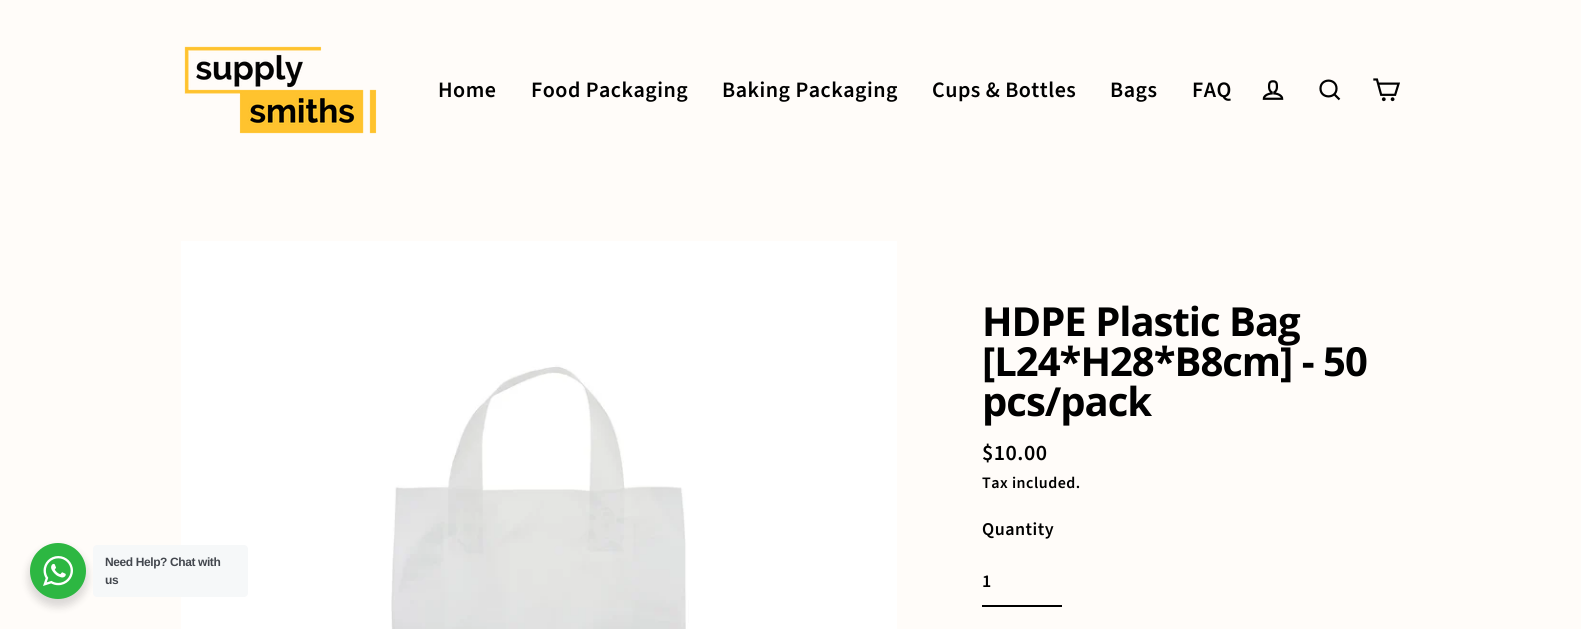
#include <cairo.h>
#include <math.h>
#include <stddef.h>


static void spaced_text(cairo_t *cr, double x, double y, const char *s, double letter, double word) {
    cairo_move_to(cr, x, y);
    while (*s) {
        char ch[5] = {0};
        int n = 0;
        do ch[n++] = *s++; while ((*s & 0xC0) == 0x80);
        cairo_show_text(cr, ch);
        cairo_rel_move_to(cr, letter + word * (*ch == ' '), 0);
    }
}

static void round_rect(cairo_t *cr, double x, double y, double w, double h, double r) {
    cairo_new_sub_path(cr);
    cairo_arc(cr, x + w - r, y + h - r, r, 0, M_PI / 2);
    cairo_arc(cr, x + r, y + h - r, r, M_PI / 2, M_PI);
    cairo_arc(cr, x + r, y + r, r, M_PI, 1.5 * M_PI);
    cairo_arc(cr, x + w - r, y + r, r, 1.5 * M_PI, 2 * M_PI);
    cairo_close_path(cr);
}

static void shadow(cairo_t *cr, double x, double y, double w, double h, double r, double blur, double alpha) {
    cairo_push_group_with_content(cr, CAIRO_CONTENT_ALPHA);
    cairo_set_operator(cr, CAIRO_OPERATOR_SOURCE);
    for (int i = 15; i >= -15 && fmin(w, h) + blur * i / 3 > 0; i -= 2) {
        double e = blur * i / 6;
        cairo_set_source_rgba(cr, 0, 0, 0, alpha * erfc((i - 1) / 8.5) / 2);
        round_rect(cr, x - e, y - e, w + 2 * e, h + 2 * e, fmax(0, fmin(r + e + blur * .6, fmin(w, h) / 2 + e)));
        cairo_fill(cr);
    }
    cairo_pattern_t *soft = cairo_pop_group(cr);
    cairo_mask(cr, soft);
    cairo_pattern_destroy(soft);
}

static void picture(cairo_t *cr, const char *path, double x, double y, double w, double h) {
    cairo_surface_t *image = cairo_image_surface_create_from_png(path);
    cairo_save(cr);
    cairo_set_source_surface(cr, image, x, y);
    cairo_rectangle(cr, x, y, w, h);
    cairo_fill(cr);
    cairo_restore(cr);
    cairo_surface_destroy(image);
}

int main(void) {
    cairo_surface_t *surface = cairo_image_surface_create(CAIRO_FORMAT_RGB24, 1581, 629);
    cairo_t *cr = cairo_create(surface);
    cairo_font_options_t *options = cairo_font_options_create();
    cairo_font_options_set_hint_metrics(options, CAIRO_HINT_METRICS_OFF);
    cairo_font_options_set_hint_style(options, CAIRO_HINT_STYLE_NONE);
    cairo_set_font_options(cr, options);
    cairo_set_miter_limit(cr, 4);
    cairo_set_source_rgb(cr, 1, 0.988, 0.976);
    cairo_paint(cr);
    cairo_set_source_rgb(cr, 0, 0, 0);
    shadow(cr, 28, 547, 60, 60, 30, 4, 0.14);
    cairo_set_source_rgb(cr, 0.176, 0.718, 0.259);
    cairo_arc(cr, 58, 571, 28, 0, 2 * M_PI);
    cairo_fill(cr);
    picture(cr, "img1.png", 43, 556, 30, 30);
    picture(cr, "img5.png", 181, 241, 716, 388);
    cairo_set_source_rgb(cr, 0.961, 0.969, 0.976);
    round_rect(cr, 93, 545, 155, 52, 4);
    cairo_fill(cr);
    cairo_select_font_face(cr, "Liberation Sans", CAIRO_FONT_SLANT_NORMAL, CAIRO_FONT_WEIGHT_BOLD);
    cairo_set_font_size(cr, 12);
    cairo_set_source_rgb(cr, 0.263, 0.278, 0.306);
    spaced_text(cr, 105, 566, "Need Help? Chat with", -0.4, 0);
    spaced_text(cr, 105, 584, "us", -0.4, 0);
    picture(cr, "img2.png", 184, 46, 193, 88);
    cairo_select_font_face(cr, "Source Sans Pro SemiBold", CAIRO_FONT_SLANT_NORMAL, CAIRO_FONT_WEIGHT_NORMAL);
    cairo_set_font_size(cr, 22);
    cairo_set_source_rgb(cr, 0, 0, 0);
    spaced_text(cr, 438, 97, "Home", 0.5, 0);
    spaced_text(cr, 531, 97, "Food Packaging", 0.5, 0);
    spaced_text(cr, 722, 97, "Baking Packaging", 0.5, 0);
    spaced_text(cr, 932, 97, "Cups & Bottles", 0.5, 0);
    spaced_text(cr, 1110, 97, "Bags", 0.5, 0);
    spaced_text(cr, 1192, 97, "FAQ", 0.5, 0);
    picture(cr, "img3.png", 1262, 80, 22, 20);
    cairo_new_path(cr);
    cairo_move_to(cr, 1336.5, 88.5);
    cairo_curve_to(cr, 1336.5, 99, 1320.5, 99, 1320.5, 88.5);
    cairo_curve_to(cr, 1320.5, 78, 1336.5, 78, 1336.5, 88.5);
    cairo_close_path(cr);
    cairo_move_to(cr, 1339.5, 99.5);
    cairo_line_to(cr, 1334.5, 94.5);
    cairo_set_line_width(cr, 2.2);
    cairo_stroke(cr);
    picture(cr, "img4.png", 1373, 78, 27, 24);
    cairo_select_font_face(cr, "Open Sans", CAIRO_FONT_SLANT_NORMAL, CAIRO_FONT_WEIGHT_BOLD);
    cairo_set_font_size(cr, 40);
    spaced_text(cr, 982, 336, "HDPE Plastic Bag", -1, 0);
    spaced_text(cr, 982, 376, "[L24*H28*B8cm] - 50", -1, 0);
    spaced_text(cr, 982, 416, "pcs/pack", -1, 0);
    cairo_select_font_face(cr, "Source Sans Pro SemiBold", CAIRO_FONT_SLANT_NORMAL, CAIRO_FONT_WEIGHT_NORMAL);
    cairo_set_font_size(cr, 22);
    spaced_text(cr, 982, 460, "$10.00", 0.5, 0);
    cairo_set_font_size(cr, 16);
    spaced_text(cr, 982, 488, "Tax included.", 0.5, 0);
    cairo_set_font_size(cr, 18);
    spaced_text(cr, 982, 535, "Quantity", 0.5, 0);
    cairo_rectangle(cr, 982, 605, 80, 2);
    cairo_fill(cr);
    spaced_text(cr, 982, 587, "1", 0.5, 0);
    cairo_surface_write_to_png(surface, "page.png");
    cairo_font_options_destroy(options);
    cairo_destroy(cr);
    cairo_surface_destroy(surface);
    return 0;
}
